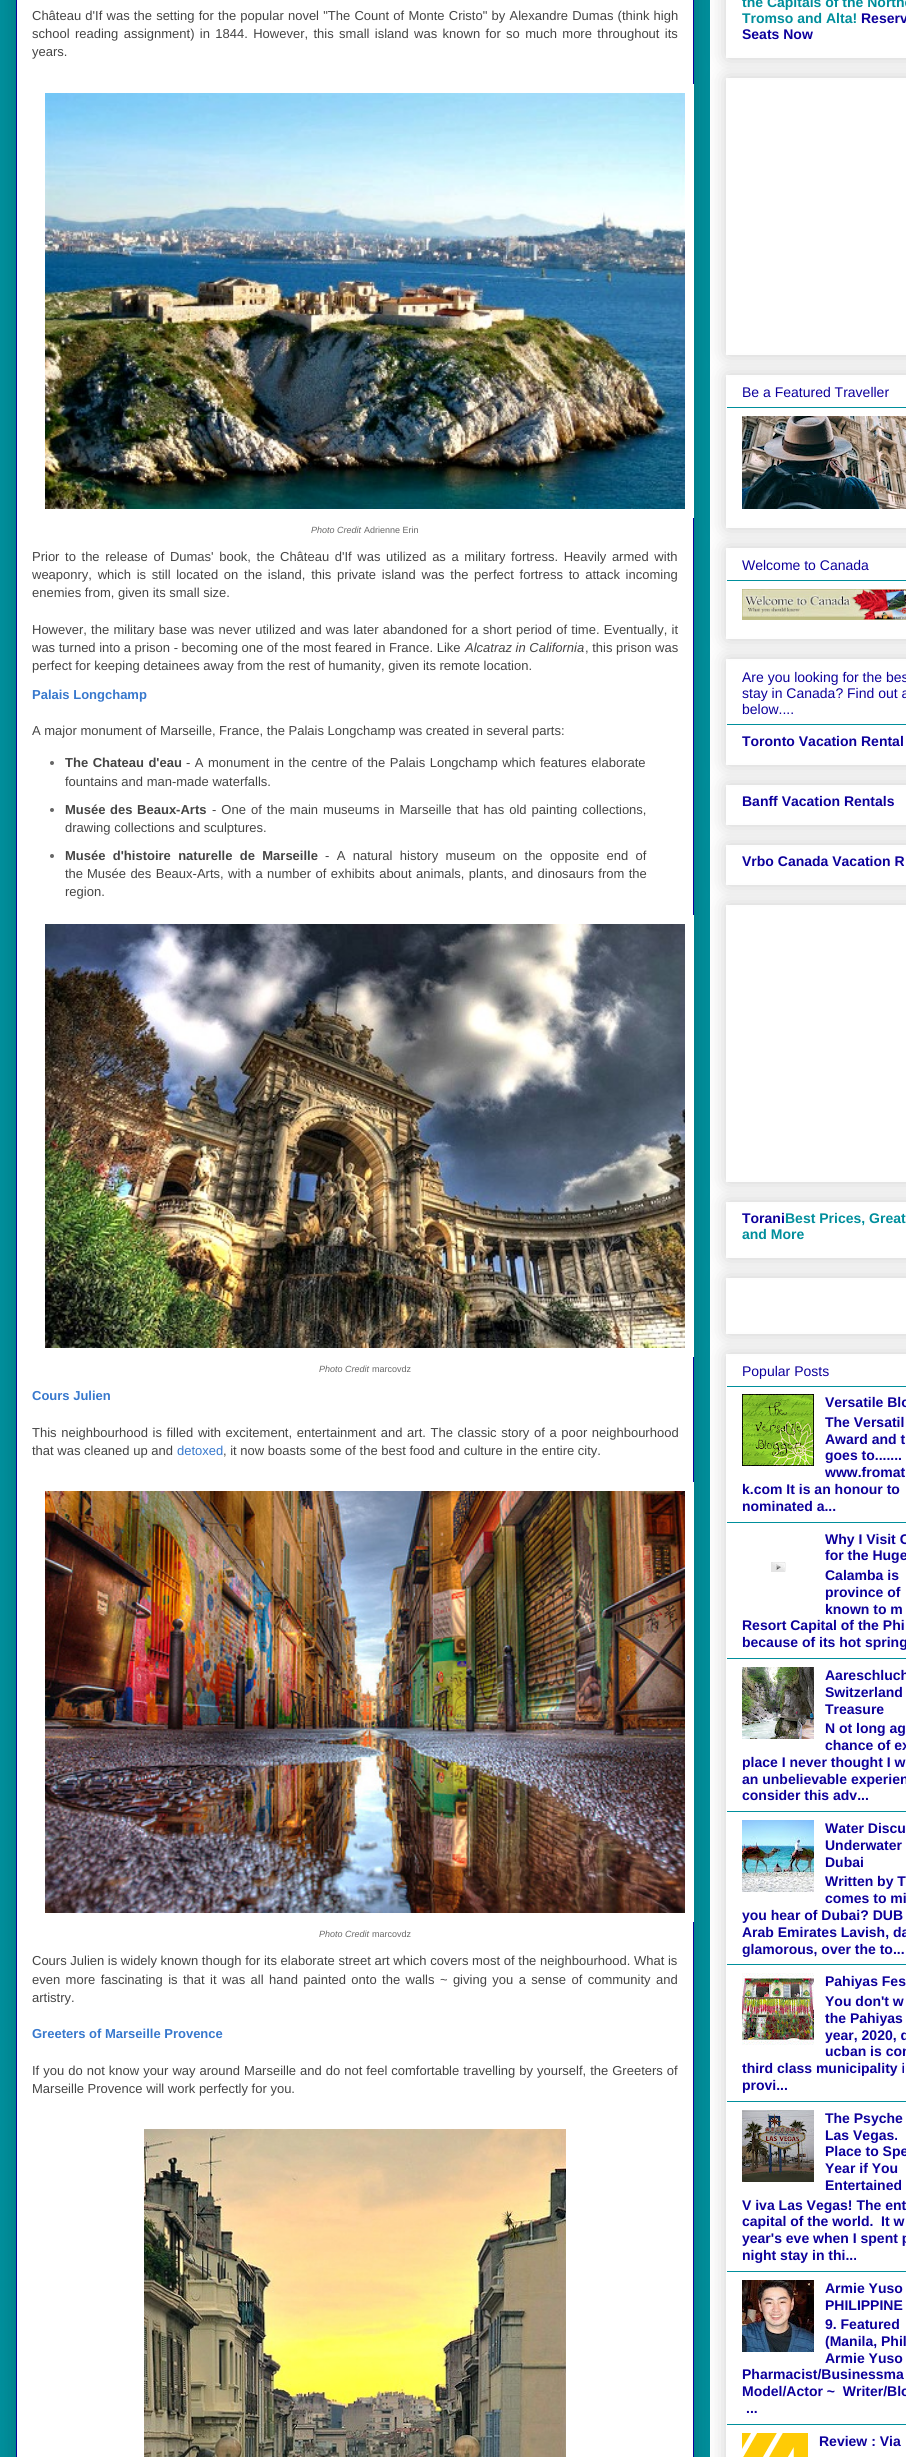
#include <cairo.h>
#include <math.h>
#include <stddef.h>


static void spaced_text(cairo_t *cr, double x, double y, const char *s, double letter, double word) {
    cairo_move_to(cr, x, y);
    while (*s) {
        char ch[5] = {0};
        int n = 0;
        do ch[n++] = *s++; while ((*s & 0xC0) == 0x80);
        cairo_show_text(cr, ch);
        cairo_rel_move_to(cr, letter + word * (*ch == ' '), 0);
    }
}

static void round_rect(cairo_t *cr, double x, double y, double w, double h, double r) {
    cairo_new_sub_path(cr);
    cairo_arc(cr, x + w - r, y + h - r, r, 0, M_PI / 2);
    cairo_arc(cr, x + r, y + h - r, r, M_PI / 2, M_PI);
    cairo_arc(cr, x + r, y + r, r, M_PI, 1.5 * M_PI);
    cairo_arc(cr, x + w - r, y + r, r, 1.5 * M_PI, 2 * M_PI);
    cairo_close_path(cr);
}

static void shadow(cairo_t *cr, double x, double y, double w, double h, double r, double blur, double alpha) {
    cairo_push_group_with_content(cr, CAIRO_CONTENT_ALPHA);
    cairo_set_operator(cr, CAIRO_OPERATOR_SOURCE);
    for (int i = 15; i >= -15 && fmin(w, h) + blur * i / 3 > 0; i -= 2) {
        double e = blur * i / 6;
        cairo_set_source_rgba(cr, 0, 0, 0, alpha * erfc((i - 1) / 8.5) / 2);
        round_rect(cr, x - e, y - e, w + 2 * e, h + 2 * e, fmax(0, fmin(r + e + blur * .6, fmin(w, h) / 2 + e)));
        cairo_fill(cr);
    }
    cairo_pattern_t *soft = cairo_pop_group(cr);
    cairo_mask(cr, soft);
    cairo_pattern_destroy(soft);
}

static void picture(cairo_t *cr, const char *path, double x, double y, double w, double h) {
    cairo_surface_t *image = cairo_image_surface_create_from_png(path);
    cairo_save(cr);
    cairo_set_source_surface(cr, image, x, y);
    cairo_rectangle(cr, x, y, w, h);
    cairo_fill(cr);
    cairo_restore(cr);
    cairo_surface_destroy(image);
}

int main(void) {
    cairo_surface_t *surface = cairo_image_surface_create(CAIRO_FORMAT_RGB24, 906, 2457);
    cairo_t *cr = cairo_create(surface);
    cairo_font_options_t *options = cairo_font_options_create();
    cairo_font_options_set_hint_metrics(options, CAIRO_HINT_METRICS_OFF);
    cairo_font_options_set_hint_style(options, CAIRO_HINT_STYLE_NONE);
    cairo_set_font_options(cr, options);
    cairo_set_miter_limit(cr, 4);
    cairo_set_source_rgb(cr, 0, 0.561, 0.612);
    cairo_paint(cr);
    cairo_set_source_rgb(cr, 0, 0, 0);
    shadow(cr, 16, -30, 678, 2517, 0, 10, 0.2);
    cairo_set_source_rgb(cr, 1, 1, 1);
    cairo_rectangle(cr, 16.5, -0.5, 677, 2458);
    cairo_fill_preserve(cr);
    cairo_set_source_rgb(cr, 0.051, 0, 0.612);
    cairo_set_line_width(cr, 1);
    cairo_stroke(cr);
    cairo_select_font_face(cr, "Liberation Sans", CAIRO_FONT_SLANT_NORMAL, CAIRO_FONT_WEIGHT_NORMAL);
    cairo_set_font_size(cr, 13);
    cairo_set_source_rgb(cr, 0.267, 0.267, 0.267);
    spaced_text(cr, 32, 20, "Château d'If was the setting for the popular novel \"The Count of Monte Cristo\" by Alexandre Dumas (think high", 0, 0.6);
    spaced_text(cr, 32, 38, "school reading assignment) in 1844. However, this small island was known for so much more throughout its", 0, 1.75);
    cairo_move_to(cr, 32, 56);
    cairo_show_text(cr, "years.");
    picture(cr, "img1.png", 45, 93, 640, 416);
    cairo_set_source_rgb(cr, 1, 1, 1);
    cairo_rectangle(cr, 693, 84, 1, 434);
    cairo_fill(cr);
    cairo_select_font_face(cr, "Liberation Sans", CAIRO_FONT_SLANT_ITALIC, CAIRO_FONT_WEIGHT_NORMAL);
    cairo_set_font_size(cr, 9);
    cairo_set_source_rgb(cr, 0.4, 0.4, 0.4);
    cairo_move_to(cr, 311, 533);
    cairo_show_text(cr, "Photo Credit");
    cairo_select_font_face(cr, "Liberation Sans", CAIRO_FONT_SLANT_NORMAL, CAIRO_FONT_WEIGHT_NORMAL);
    cairo_move_to(cr, 364, 533);
    cairo_show_text(cr, "Adrienne Erin");
    cairo_set_font_size(cr, 13);
    cairo_set_source_rgb(cr, 0.267, 0.267, 0.267);
    spaced_text(cr, 32, 561, "Prior to the release of Dumas' book, the", 0, 2);
    spaced_text(cr, 280, 561, "Château d'If was utilized as a military fortress. Heavily armed with", 0, 2);
    spaced_text(cr, 32, 579, "weaponry, which is still located on the island, this private island was the perfect fortress to attack incoming", 0, 2.1);
    cairo_move_to(cr, 32, 597);
    cairo_show_text(cr, "enemies from, given its small size.");
    spaced_text(cr, 32, 634, "However, the military base was never utilized and was later abandoned for a short period of time. Eventually, it", 0, 0.6);
    cairo_move_to(cr, 32, 652);
    cairo_show_text(cr, "was turned into a prison - becoming one of the most feared in France. Like");
    cairo_select_font_face(cr, "Liberation Sans", CAIRO_FONT_SLANT_ITALIC, CAIRO_FONT_WEIGHT_NORMAL);
    cairo_move_to(cr, 465, 652);
    cairo_show_text(cr, "Alcatraz in California");
    cairo_select_font_face(cr, "Liberation Sans", CAIRO_FONT_SLANT_NORMAL, CAIRO_FONT_WEIGHT_NORMAL);
    cairo_move_to(cr, 585, 652);
    cairo_show_text(cr, ", this prison was");
    cairo_move_to(cr, 32, 670);
    cairo_show_text(cr, "perfect for keeping detainees away from the rest of humanity, given its remote location.");
    cairo_select_font_face(cr, "Liberation Sans", CAIRO_FONT_SLANT_NORMAL, CAIRO_FONT_WEIGHT_BOLD);
    cairo_set_source_rgb(cr, 0.216, 0.471, 0.804);
    cairo_move_to(cr, 32, 699);
    cairo_show_text(cr, "Palais Longchamp");
    cairo_select_font_face(cr, "Liberation Sans", CAIRO_FONT_SLANT_NORMAL, CAIRO_FONT_WEIGHT_NORMAL);
    cairo_set_source_rgb(cr, 0.267, 0.267, 0.267);
    cairo_move_to(cr, 32, 735);
    cairo_show_text(cr, "A major monument of Marseille, France, the Palais Longchamp was created in several parts:");
    cairo_set_source_rgb(cr, 0.4, 0.4, 0.4);
    cairo_new_path(cr);
    cairo_arc(cr, 52, 763, 2, 0, 2 * M_PI);
    cairo_fill(cr);
    cairo_select_font_face(cr, "Liberation Sans", CAIRO_FONT_SLANT_NORMAL, CAIRO_FONT_WEIGHT_BOLD);
    cairo_set_source_rgb(cr, 0.267, 0.267, 0.267);
    spaced_text(cr, 65, 767, "The Chateau d'eau", 0, 0.9);
    cairo_select_font_face(cr, "Liberation Sans", CAIRO_FONT_SLANT_NORMAL, CAIRO_FONT_WEIGHT_NORMAL);
    spaced_text(cr, 186, 767, "- A monument in the centre of the Palais Longchamp which features elaborate", 0, 0.9);
    cairo_move_to(cr, 65, 786);
    cairo_show_text(cr, "fountains and man-made waterfalls.");
    cairo_set_source_rgb(cr, 0.4, 0.4, 0.4);
    cairo_new_path(cr);
    cairo_arc(cr, 52, 810, 2, 0, 2 * M_PI);
    cairo_fill(cr);
    cairo_select_font_face(cr, "Liberation Sans", CAIRO_FONT_SLANT_NORMAL, CAIRO_FONT_WEIGHT_BOLD);
    cairo_set_source_rgb(cr, 0.267, 0.267, 0.267);
    spaced_text(cr, 65, 814, "Musée des Beaux-Arts", 0, 1);
    cairo_select_font_face(cr, "Liberation Sans", CAIRO_FONT_SLANT_NORMAL, CAIRO_FONT_WEIGHT_NORMAL);
    spaced_text(cr, 212, 814, "- One of the main museums in Marseille that has old painting collections,", 0, 1.4);
    cairo_move_to(cr, 65, 832);
    cairo_show_text(cr, "drawing collections and sculptures.");
    cairo_set_source_rgb(cr, 0.4, 0.4, 0.4);
    cairo_new_path(cr);
    cairo_arc(cr, 52, 856, 2, 0, 2 * M_PI);
    cairo_fill(cr);
    cairo_select_font_face(cr, "Liberation Sans", CAIRO_FONT_SLANT_NORMAL, CAIRO_FONT_WEIGHT_BOLD);
    cairo_set_source_rgb(cr, 0.267, 0.267, 0.267);
    spaced_text(cr, 65, 860, "Musée d'histoire naturelle de Marseille", 0, 3.75);
    cairo_select_font_face(cr, "Liberation Sans", CAIRO_FONT_SLANT_NORMAL, CAIRO_FONT_WEIGHT_NORMAL);
    spaced_text(cr, 325, 860, "- A natural history museum on the opposite end of", 0, 3.75);
    cairo_move_to(cr, 65, 878);
    cairo_show_text(cr, "the");
    spaced_text(cr, 87, 878, "Musée des Beaux-Arts, with a number of exhibits about animals, plants, and dinosaurs from the", 0, 0.75);
    cairo_move_to(cr, 65, 896);
    cairo_show_text(cr, "region.");
    picture(cr, "img2.png", 45, 924, 640, 424);
    cairo_set_source_rgb(cr, 1, 1, 1);
    cairo_rectangle(cr, 693, 915, 1, 442);
    cairo_fill(cr);
    cairo_select_font_face(cr, "Liberation Sans", CAIRO_FONT_SLANT_ITALIC, CAIRO_FONT_WEIGHT_NORMAL);
    cairo_set_font_size(cr, 9);
    cairo_set_source_rgb(cr, 0.4, 0.4, 0.4);
    cairo_move_to(cr, 319, 1372);
    cairo_show_text(cr, "Photo Credit");
    cairo_select_font_face(cr, "Liberation Sans", CAIRO_FONT_SLANT_NORMAL, CAIRO_FONT_WEIGHT_NORMAL);
    cairo_move_to(cr, 372, 1372);
    cairo_show_text(cr, "marcovdz");
    cairo_select_font_face(cr, "Liberation Sans", CAIRO_FONT_SLANT_NORMAL, CAIRO_FONT_WEIGHT_BOLD);
    cairo_set_font_size(cr, 13);
    cairo_set_source_rgb(cr, 0.216, 0.471, 0.804);
    cairo_move_to(cr, 32, 1400);
    cairo_show_text(cr, "Cours Julien");
    cairo_select_font_face(cr, "Liberation Sans", CAIRO_FONT_SLANT_NORMAL, CAIRO_FONT_WEIGHT_NORMAL);
    cairo_set_source_rgb(cr, 0.267, 0.267, 0.267);
    spaced_text(cr, 32, 1437, "This neighbourhood is filled with excitement, entertainment and art. The classic story of a poor neighbourhood", 0, 1);
    cairo_move_to(cr, 32, 1455);
    cairo_show_text(cr, "that was cleaned up and");
    cairo_set_source_rgb(cr, 0.216, 0.471, 0.804);
    cairo_move_to(cr, 177, 1455);
    cairo_show_text(cr, "detoxed");
    cairo_set_source_rgb(cr, 0.267, 0.267, 0.267);
    cairo_move_to(cr, 223, 1455);
    cairo_show_text(cr, ", it now boasts some of the best food and culture in the entire city.");
    picture(cr, "img3.png", 45, 1491, 640, 422);
    cairo_set_source_rgb(cr, 1, 1, 1);
    cairo_rectangle(cr, 693, 1482, 1, 440);
    cairo_fill(cr);
    cairo_select_font_face(cr, "Liberation Sans", CAIRO_FONT_SLANT_ITALIC, CAIRO_FONT_WEIGHT_NORMAL);
    cairo_set_font_size(cr, 9);
    cairo_set_source_rgb(cr, 0.4, 0.4, 0.4);
    cairo_move_to(cr, 319, 1937);
    cairo_show_text(cr, "Photo Credit");
    cairo_select_font_face(cr, "Liberation Sans", CAIRO_FONT_SLANT_NORMAL, CAIRO_FONT_WEIGHT_NORMAL);
    cairo_move_to(cr, 372, 1937);
    cairo_show_text(cr, "marcovdz");
    cairo_set_font_size(cr, 13);
    cairo_set_source_rgb(cr, 0.267, 0.267, 0.267);
    cairo_move_to(cr, 32, 1965);
    cairo_show_text(cr, "Cours Julien is widely known though for its elaborate street art which covers most of the neighbourhood. What is");
    spaced_text(cr, 32, 1984, "even more fascinating is that it was all hand painted onto the walls ~ giving you a sense of community and", 0, 1.8);
    cairo_move_to(cr, 32, 2002);
    cairo_show_text(cr, "artistry.");
    cairo_select_font_face(cr, "Liberation Sans", CAIRO_FONT_SLANT_NORMAL, CAIRO_FONT_WEIGHT_BOLD);
    cairo_set_source_rgb(cr, 0.216, 0.471, 0.804);
    cairo_move_to(cr, 32, 2038);
    cairo_show_text(cr, "Greeters of Marseille Provence");
    cairo_select_font_face(cr, "Liberation Sans", CAIRO_FONT_SLANT_NORMAL, CAIRO_FONT_WEIGHT_NORMAL);
    cairo_set_source_rgb(cr, 0.267, 0.267, 0.267);
    spaced_text(cr, 32, 2075, "If you do not know your way around Marseille and do not feel comfortable travelling by yourself, the Greeters of", 0, 0.4);
    cairo_move_to(cr, 32, 2093);
    cairo_show_text(cr, "Marseille Provence will work perfectly for you.");
    picture(cr, "img4.png", 144, 2129, 422, 328);
    cairo_set_source_rgb(cr, 1, 1, 1);
    cairo_rectangle(cr, 710, 0, 196, 2457);
    cairo_fill(cr);
    cairo_save(cr);
    cairo_set_fill_rule(cr, CAIRO_FILL_RULE_EVEN_ODD);
    cairo_new_path(cr);
    cairo_move_to(cr, 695, 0);
    cairo_line_to(cr, 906, 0);
    cairo_line_to(cr, 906, 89);
    cairo_line_to(cr, 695, 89);
    cairo_close_path(cr);
    cairo_move_to(cr, 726, -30);
    cairo_line_to(cr, 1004, -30);
    cairo_line_to(cr, 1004, 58);
    cairo_line_to(cr, 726, 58);
    cairo_close_path(cr);
    cairo_clip(cr);
    cairo_set_source_rgb(cr, 0, 0, 0);
    shadow(cr, 726, -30, 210, 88, 0, 10, 0.2);
    cairo_restore(cr);
    cairo_select_font_face(cr, "Liberation Sans", CAIRO_FONT_SLANT_NORMAL, CAIRO_FONT_WEIGHT_BOLD);
    cairo_set_font_size(cr, 14);
    cairo_set_source_rgb(cr, 0, 0.557, 0.612);
    cairo_move_to(cr, 742, 7);
    cairo_show_text(cr, "the Capitals of the Northe");
    cairo_move_to(cr, 742, 23);
    cairo_show_text(cr, "Tromso and Alta!");
    cairo_set_source_rgb(cr, 0.051, 0, 0.612);
    cairo_move_to(cr, 861, 23);
    cairo_show_text(cr, "Reserv");
    cairo_move_to(cr, 742, 39);
    cairo_show_text(cr, "Seats Now");
    cairo_save(cr);
    cairo_set_fill_rule(cr, CAIRO_FILL_RULE_EVEN_ODD);
    cairo_new_path(cr);
    cairo_move_to(cr, 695, 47);
    cairo_line_to(cr, 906, 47);
    cairo_line_to(cr, 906, 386);
    cairo_line_to(cr, 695, 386);
    cairo_close_path(cr);
    cairo_move_to(cr, 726, 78);
    cairo_line_to(cr, 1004, 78);
    cairo_line_to(cr, 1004, 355);
    cairo_line_to(cr, 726, 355);
    cairo_close_path(cr);
    cairo_clip(cr);
    cairo_set_source_rgb(cr, 0, 0, 0);
    shadow(cr, 726, 78, 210, 277, 0, 10, 0.2);
    cairo_restore(cr);
    cairo_save(cr);
    cairo_set_fill_rule(cr, CAIRO_FILL_RULE_EVEN_ODD);
    cairo_new_path(cr);
    cairo_move_to(cr, 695, 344);
    cairo_line_to(cr, 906, 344);
    cairo_line_to(cr, 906, 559);
    cairo_line_to(cr, 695, 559);
    cairo_close_path(cr);
    cairo_move_to(cr, 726, 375);
    cairo_line_to(cr, 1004, 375);
    cairo_line_to(cr, 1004, 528);
    cairo_line_to(cr, 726, 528);
    cairo_close_path(cr);
    cairo_clip(cr);
    cairo_set_source_rgb(cr, 0, 0, 0);
    shadow(cr, 726, 375, 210, 153, 0, 10, 0.2);
    cairo_restore(cr);
    cairo_set_source_rgb(cr, 0, 0.561, 0.612);
    cairo_rectangle(cr, 727, 407, 179, 1);
    cairo_fill(cr);
    cairo_select_font_face(cr, "Liberation Sans", CAIRO_FONT_SLANT_NORMAL, CAIRO_FONT_WEIGHT_NORMAL);
    cairo_set_source_rgb(cr, 0.051, 0, 0.612);
    cairo_move_to(cr, 742, 397);
    cairo_show_text(cr, "Be a Featured Traveller");
    picture(cr, "img5.png", 742, 416, 164, 93);
    cairo_save(cr);
    cairo_set_fill_rule(cr, CAIRO_FILL_RULE_EVEN_ODD);
    cairo_new_path(cr);
    cairo_move_to(cr, 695, 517);
    cairo_line_to(cr, 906, 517);
    cairo_line_to(cr, 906, 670);
    cairo_line_to(cr, 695, 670);
    cairo_close_path(cr);
    cairo_move_to(cr, 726, 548);
    cairo_line_to(cr, 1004, 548);
    cairo_line_to(cr, 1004, 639);
    cairo_line_to(cr, 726, 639);
    cairo_close_path(cr);
    cairo_clip(cr);
    cairo_set_source_rgb(cr, 0, 0, 0);
    shadow(cr, 726, 548, 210, 91, 0, 10, 0.2);
    cairo_restore(cr);
    cairo_set_source_rgb(cr, 0, 0.561, 0.612);
    cairo_rectangle(cr, 727, 580, 179, 1);
    cairo_fill(cr);
    cairo_set_source_rgb(cr, 0.051, 0, 0.612);
    cairo_move_to(cr, 742, 570);
    cairo_show_text(cr, "Welcome to Canada");
    picture(cr, "img6.png", 742, 589, 164, 31);
    cairo_save(cr);
    cairo_set_fill_rule(cr, CAIRO_FILL_RULE_EVEN_ODD);
    cairo_new_path(cr);
    cairo_move_to(cr, 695, 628);
    cairo_line_to(cr, 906, 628);
    cairo_line_to(cr, 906, 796);
    cairo_line_to(cr, 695, 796);
    cairo_close_path(cr);
    cairo_move_to(cr, 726, 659);
    cairo_line_to(cr, 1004, 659);
    cairo_line_to(cr, 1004, 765);
    cairo_line_to(cr, 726, 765);
    cairo_close_path(cr);
    cairo_clip(cr);
    cairo_set_source_rgb(cr, 0, 0, 0);
    shadow(cr, 726, 659, 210, 106, 0, 10, 0.2);
    cairo_restore(cr);
    cairo_set_source_rgb(cr, 0, 0.561, 0.612);
    cairo_rectangle(cr, 727, 724, 179, 1);
    cairo_fill(cr);
    cairo_set_source_rgb(cr, 0.051, 0, 0.612);
    cairo_move_to(cr, 742, 682);
    cairo_show_text(cr, "Are you looking for the bes");
    cairo_move_to(cr, 742, 698);
    cairo_show_text(cr, "stay in Canada? Find out a");
    cairo_move_to(cr, 742, 714);
    cairo_show_text(cr, "below....");
    cairo_select_font_face(cr, "Liberation Sans", CAIRO_FONT_SLANT_NORMAL, CAIRO_FONT_WEIGHT_BOLD);
    cairo_move_to(cr, 742, 746);
    cairo_show_text(cr, "Toronto Vacation Rental");
    cairo_save(cr);
    cairo_set_fill_rule(cr, CAIRO_FILL_RULE_EVEN_ODD);
    cairo_new_path(cr);
    cairo_move_to(cr, 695, 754);
    cairo_line_to(cr, 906, 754);
    cairo_line_to(cr, 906, 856);
    cairo_line_to(cr, 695, 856);
    cairo_close_path(cr);
    cairo_move_to(cr, 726, 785);
    cairo_line_to(cr, 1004, 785);
    cairo_line_to(cr, 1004, 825);
    cairo_line_to(cr, 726, 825);
    cairo_close_path(cr);
    cairo_clip(cr);
    cairo_set_source_rgb(cr, 0, 0, 0);
    shadow(cr, 726, 785, 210, 40, 0, 10, 0.2);
    cairo_restore(cr);
    cairo_move_to(cr, 742, 806);
    cairo_show_text(cr, "Banff Vacation Rentals");
    cairo_save(cr);
    cairo_set_fill_rule(cr, CAIRO_FILL_RULE_EVEN_ODD);
    cairo_new_path(cr);
    cairo_move_to(cr, 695, 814);
    cairo_line_to(cr, 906, 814);
    cairo_line_to(cr, 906, 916);
    cairo_line_to(cr, 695, 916);
    cairo_close_path(cr);
    cairo_move_to(cr, 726, 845);
    cairo_line_to(cr, 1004, 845);
    cairo_line_to(cr, 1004, 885);
    cairo_line_to(cr, 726, 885);
    cairo_close_path(cr);
    cairo_clip(cr);
    cairo_set_source_rgb(cr, 0, 0, 0);
    shadow(cr, 726, 845, 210, 40, 0, 10, 0.2);
    cairo_restore(cr);
    cairo_move_to(cr, 742, 866);
    cairo_show_text(cr, "Vrbo Canada Vacation R");
    cairo_save(cr);
    cairo_set_fill_rule(cr, CAIRO_FILL_RULE_EVEN_ODD);
    cairo_new_path(cr);
    cairo_move_to(cr, 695, 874);
    cairo_line_to(cr, 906, 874);
    cairo_line_to(cr, 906, 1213);
    cairo_line_to(cr, 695, 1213);
    cairo_close_path(cr);
    cairo_move_to(cr, 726, 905);
    cairo_line_to(cr, 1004, 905);
    cairo_line_to(cr, 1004, 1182);
    cairo_line_to(cr, 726, 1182);
    cairo_close_path(cr);
    cairo_clip(cr);
    cairo_set_source_rgb(cr, 0, 0, 0);
    shadow(cr, 726, 905, 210, 277, 0, 10, 0.2);
    cairo_restore(cr);
    cairo_save(cr);
    cairo_set_fill_rule(cr, CAIRO_FILL_RULE_EVEN_ODD);
    cairo_new_path(cr);
    cairo_move_to(cr, 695, 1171);
    cairo_line_to(cr, 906, 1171);
    cairo_line_to(cr, 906, 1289);
    cairo_line_to(cr, 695, 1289);
    cairo_close_path(cr);
    cairo_move_to(cr, 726, 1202);
    cairo_line_to(cr, 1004, 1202);
    cairo_line_to(cr, 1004, 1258);
    cairo_line_to(cr, 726, 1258);
    cairo_close_path(cr);
    cairo_clip(cr);
    cairo_set_source_rgb(cr, 0, 0, 0);
    shadow(cr, 726, 1202, 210, 56, 0, 10, 0.2);
    cairo_restore(cr);
    cairo_move_to(cr, 742, 1223);
    cairo_show_text(cr, "Torani");
    cairo_set_source_rgb(cr, 0, 0.557, 0.612);
    cairo_move_to(cr, 785, 1223);
    cairo_show_text(cr, "Best Prices, Great");
    cairo_move_to(cr, 742, 1239);
    cairo_show_text(cr, "and More");
    cairo_save(cr);
    cairo_set_fill_rule(cr, CAIRO_FILL_RULE_EVEN_ODD);
    cairo_new_path(cr);
    cairo_move_to(cr, 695, 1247);
    cairo_line_to(cr, 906, 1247);
    cairo_line_to(cr, 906, 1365);
    cairo_line_to(cr, 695, 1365);
    cairo_close_path(cr);
    cairo_move_to(cr, 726, 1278);
    cairo_line_to(cr, 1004, 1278);
    cairo_line_to(cr, 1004, 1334);
    cairo_line_to(cr, 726, 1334);
    cairo_close_path(cr);
    cairo_clip(cr);
    cairo_set_source_rgb(cr, 0, 0, 0);
    shadow(cr, 726, 1278, 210, 56, 0, 10, 0.2);
    cairo_restore(cr);
    cairo_save(cr);
    cairo_set_fill_rule(cr, CAIRO_FILL_RULE_EVEN_ODD);
    cairo_new_path(cr);
    cairo_move_to(cr, 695, 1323);
    cairo_line_to(cr, 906, 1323);
    cairo_line_to(cr, 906, 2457);
    cairo_line_to(cr, 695, 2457);
    cairo_close_path(cr);
    cairo_move_to(cr, 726, 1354);
    cairo_line_to(cr, 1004, 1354);
    cairo_line_to(cr, 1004, 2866);
    cairo_line_to(cr, 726, 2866);
    cairo_close_path(cr);
    cairo_clip(cr);
    cairo_set_source_rgb(cr, 0, 0, 0);
    shadow(cr, 726, 1354, 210, 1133, 0, 10, 0.2);
    cairo_restore(cr);
    cairo_set_source_rgb(cr, 0, 0.561, 0.612);
    cairo_rectangle(cr, 727, 1386, 179, 1);
    cairo_fill(cr);
    cairo_select_font_face(cr, "Liberation Sans", CAIRO_FONT_SLANT_NORMAL, CAIRO_FONT_WEIGHT_NORMAL);
    cairo_set_source_rgb(cr, 0.051, 0, 0.612);
    cairo_move_to(cr, 742, 1376);
    cairo_show_text(cr, "Popular Posts");
    cairo_set_source_rgb(cr, 0, 0.561, 0.612);
    cairo_rectangle(cr, 727, 1522, 179, 1);
    cairo_fill(cr);
    picture(cr, "img7.png", 742, 1394, 72, 72);
    cairo_select_font_face(cr, "Liberation Sans", CAIRO_FONT_SLANT_NORMAL, CAIRO_FONT_WEIGHT_BOLD);
    cairo_set_source_rgb(cr, 0.051, 0, 0.612);
    cairo_move_to(cr, 825, 1407);
    cairo_show_text(cr, "Versatile Blo");
    cairo_move_to(cr, 825, 1427);
    cairo_show_text(cr, "The Versatil");
    cairo_move_to(cr, 825, 1444);
    cairo_show_text(cr, "Award and t");
    cairo_move_to(cr, 825, 1460);
    cairo_show_text(cr, "goes to.......");
    cairo_move_to(cr, 825, 1477);
    cairo_show_text(cr, "www.fromat");
    cairo_move_to(cr, 742, 1494);
    cairo_show_text(cr, "k.com It is an honour to");
    cairo_move_to(cr, 742, 1511);
    cairo_show_text(cr, "nominated a...");
    cairo_set_source_rgb(cr, 0, 0.561, 0.612);
    cairo_rectangle(cr, 727, 1658, 179, 1);
    cairo_fill(cr);
    cairo_set_source_rgb(cr, 0.051, 0, 0.612);
    cairo_move_to(cr, 825, 1544);
    cairo_show_text(cr, "Why I Visit C");
    cairo_move_to(cr, 825, 1560);
    cairo_show_text(cr, "for the Huge");
    picture(cr, "img8.png", 771, 1562, 15, 10);
    cairo_move_to(cr, 825, 1580);
    cairo_show_text(cr, "Calamba is");
    cairo_move_to(cr, 825, 1597);
    cairo_show_text(cr, "province of");
    cairo_move_to(cr, 825, 1614);
    cairo_show_text(cr, "known to m");
    cairo_move_to(cr, 742, 1630);
    cairo_show_text(cr, "Resort Capital of the Phi");
    cairo_move_to(cr, 742, 1647);
    cairo_show_text(cr, "because of its hot spring");
    cairo_set_source_rgb(cr, 0, 0.561, 0.612);
    cairo_rectangle(cr, 727, 1811, 179, 1);
    cairo_fill(cr);
    picture(cr, "img9.png", 742, 1667, 72, 72);
    cairo_set_source_rgb(cr, 0.051, 0, 0.612);
    cairo_move_to(cr, 825, 1680);
    cairo_show_text(cr, "Aareschluch");
    cairo_move_to(cr, 825, 1697);
    cairo_show_text(cr, "Switzerland");
    cairo_move_to(cr, 825, 1714);
    cairo_show_text(cr, "Treasure");
    cairo_move_to(cr, 825, 1733);
    cairo_show_text(cr, "N ot long ag");
    cairo_move_to(cr, 825, 1750);
    cairo_show_text(cr, "chance of ex");
    cairo_move_to(cr, 742, 1767);
    cairo_show_text(cr, "place I never thought I w");
    cairo_move_to(cr, 742, 1784);
    cairo_show_text(cr, "an unbelievable experien");
    cairo_move_to(cr, 742, 1800);
    cairo_show_text(cr, "consider this adv...");
    cairo_set_source_rgb(cr, 0, 0.561, 0.612);
    cairo_rectangle(cr, 727, 1964, 179, 1);
    cairo_fill(cr);
    picture(cr, "img10.png", 742, 1820, 72, 72);
    cairo_set_source_rgb(cr, 0.051, 0, 0.612);
    cairo_move_to(cr, 825, 1833);
    cairo_show_text(cr, "Water Discu");
    cairo_move_to(cr, 825, 1850);
    cairo_show_text(cr, "Underwater");
    cairo_move_to(cr, 825, 1867);
    cairo_show_text(cr, "Dubai");
    cairo_move_to(cr, 825, 1886);
    cairo_show_text(cr, "Written by T");
    cairo_move_to(cr, 825, 1903);
    cairo_show_text(cr, "comes to mi");
    cairo_move_to(cr, 742, 1920);
    cairo_show_text(cr, "you hear of Dubai? DUB");
    cairo_move_to(cr, 742, 1937);
    cairo_show_text(cr, "Arab Emirates Lavish, da");
    cairo_move_to(cr, 742, 1954);
    cairo_show_text(cr, "glamorous, over the to...");
    cairo_set_source_rgb(cr, 0, 0.561, 0.612);
    cairo_rectangle(cr, 727, 2101, 179, 1);
    cairo_fill(cr);
    picture(cr, "img11.png", 742, 1973, 72, 72);
    cairo_set_source_rgb(cr, 0.051, 0, 0.612);
    cairo_move_to(cr, 825, 1986);
    cairo_show_text(cr, "Pahiyas Fes");
    cairo_move_to(cr, 825, 2006);
    cairo_show_text(cr, "You don't w");
    cairo_move_to(cr, 825, 2023);
    cairo_show_text(cr, "the Pahiyas");
    cairo_move_to(cr, 825, 2040);
    cairo_show_text(cr, "year, 2020, d");
    cairo_move_to(cr, 825, 2056);
    cairo_show_text(cr, "ucban is con");
    cairo_move_to(cr, 742, 2073);
    cairo_show_text(cr, "third class municipality i");
    cairo_move_to(cr, 742, 2090);
    cairo_show_text(cr, "provi...");
    cairo_set_source_rgb(cr, 0, 0.561, 0.612);
    cairo_rectangle(cr, 727, 2271, 179, 1);
    cairo_fill(cr);
    picture(cr, "img12.png", 742, 2110, 72, 72);
    cairo_set_source_rgb(cr, 0.051, 0, 0.612);
    cairo_move_to(cr, 825, 2123);
    cairo_show_text(cr, "The Psyche");
    cairo_move_to(cr, 825, 2140);
    cairo_show_text(cr, "Las Vegas.");
    cairo_move_to(cr, 825, 2156);
    cairo_show_text(cr, "Place to Spe");
    cairo_move_to(cr, 825, 2173);
    cairo_show_text(cr, "Year if You");
    cairo_move_to(cr, 825, 2190);
    cairo_show_text(cr, "Entertained");
    cairo_move_to(cr, 742, 2210);
    cairo_show_text(cr, "V iva Las Vegas! The ent");
    cairo_move_to(cr, 742, 2226);
    cairo_show_text(cr, "capital of the world.");
    cairo_move_to(cr, 881, 2226);
    cairo_show_text(cr, "It w");
    cairo_move_to(cr, 742, 2243);
    cairo_show_text(cr, "year's eve when I spent p");
    cairo_move_to(cr, 742, 2260);
    cairo_show_text(cr, "night stay in thi...");
    cairo_set_source_rgb(cr, 0, 0.561, 0.612);
    cairo_rectangle(cr, 727, 2424, 179, 1);
    cairo_fill(cr);
    picture(cr, "img13.png", 742, 2280, 72, 72);
    cairo_set_source_rgb(cr, 0.051, 0, 0.612);
    cairo_move_to(cr, 825, 2293);
    cairo_show_text(cr, "Armie Yuso");
    cairo_move_to(cr, 825, 2310);
    cairo_show_text(cr, "PHILIPPINE");
    cairo_move_to(cr, 825, 2329);
    cairo_show_text(cr, "9. Featured");
    cairo_move_to(cr, 825, 2346);
    cairo_show_text(cr, "(Manila, Phil");
    cairo_move_to(cr, 825, 2363);
    cairo_show_text(cr, "Armie Yuso");
    cairo_move_to(cr, 742, 2379);
    cairo_show_text(cr, "Pharmacist/Businessma");
    cairo_move_to(cr, 742, 2396);
    cairo_show_text(cr, "Model/Actor ~  Writer/Blo");
    cairo_move_to(cr, 746, 2413);
    cairo_show_text(cr, "...");
    picture(cr, "img14.png", 742, 2433, 66, 24);
    cairo_move_to(cr, 819, 2446);
    cairo_show_text(cr, "Review : Via");
    cairo_surface_write_to_png(surface, "page.png");
    cairo_font_options_destroy(options);
    cairo_destroy(cr);
    cairo_surface_destroy(surface);
    return 0;
}
